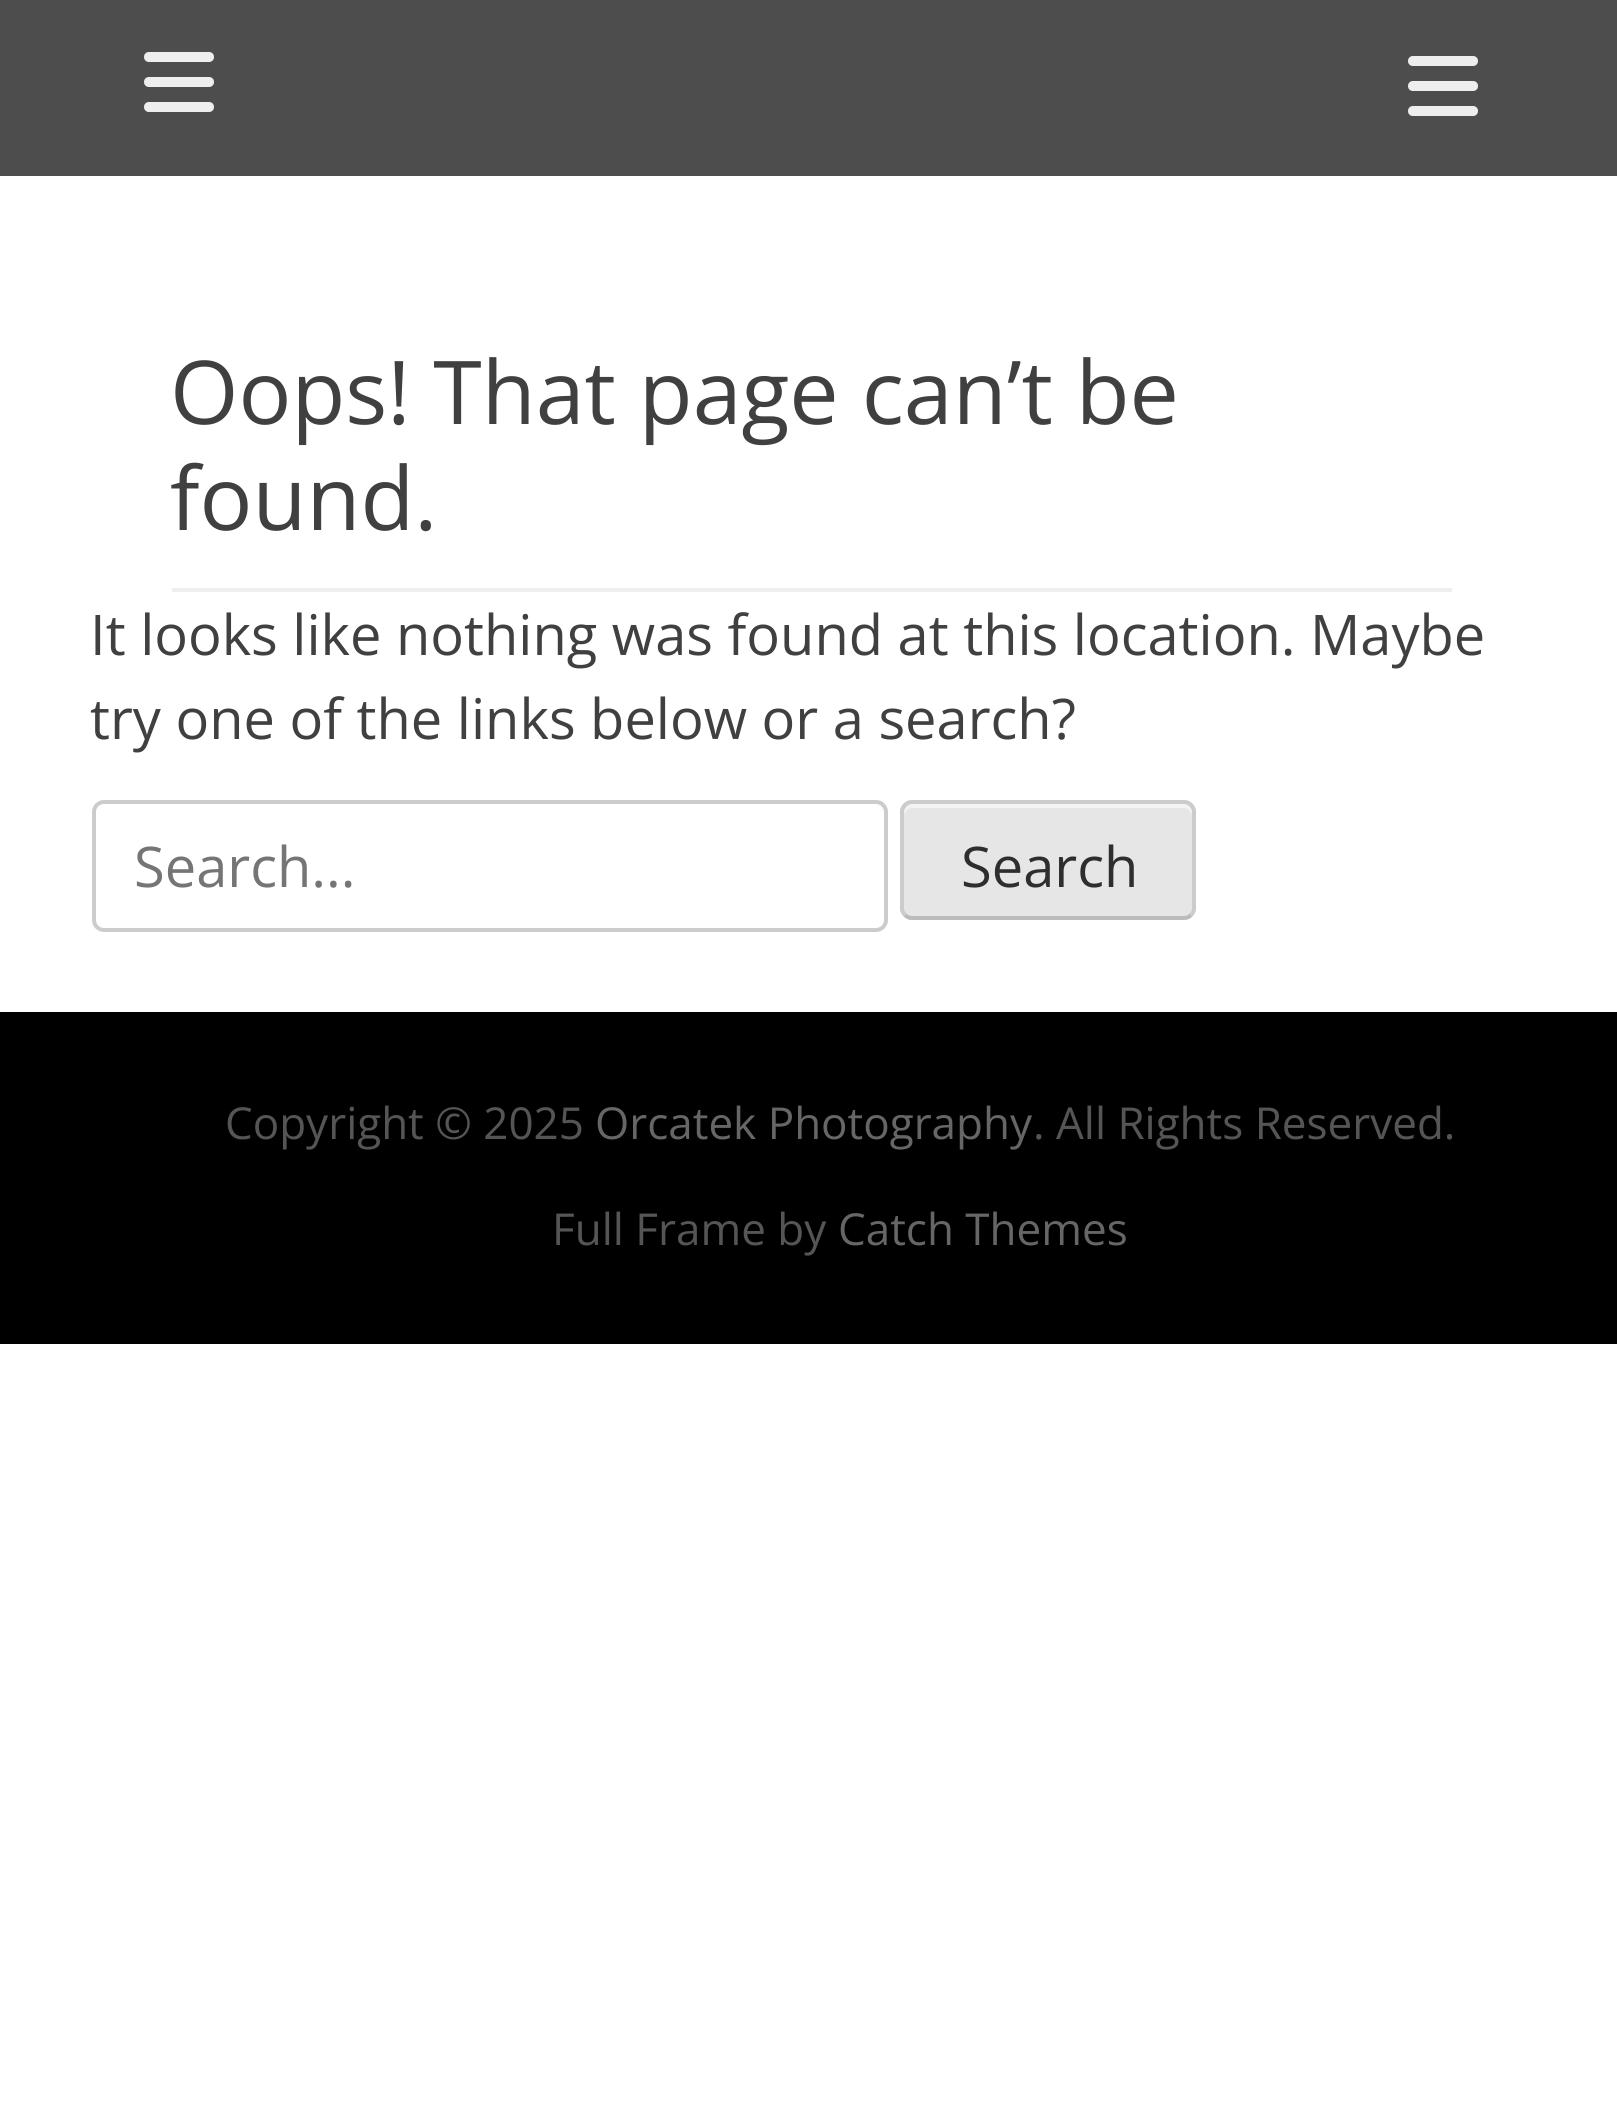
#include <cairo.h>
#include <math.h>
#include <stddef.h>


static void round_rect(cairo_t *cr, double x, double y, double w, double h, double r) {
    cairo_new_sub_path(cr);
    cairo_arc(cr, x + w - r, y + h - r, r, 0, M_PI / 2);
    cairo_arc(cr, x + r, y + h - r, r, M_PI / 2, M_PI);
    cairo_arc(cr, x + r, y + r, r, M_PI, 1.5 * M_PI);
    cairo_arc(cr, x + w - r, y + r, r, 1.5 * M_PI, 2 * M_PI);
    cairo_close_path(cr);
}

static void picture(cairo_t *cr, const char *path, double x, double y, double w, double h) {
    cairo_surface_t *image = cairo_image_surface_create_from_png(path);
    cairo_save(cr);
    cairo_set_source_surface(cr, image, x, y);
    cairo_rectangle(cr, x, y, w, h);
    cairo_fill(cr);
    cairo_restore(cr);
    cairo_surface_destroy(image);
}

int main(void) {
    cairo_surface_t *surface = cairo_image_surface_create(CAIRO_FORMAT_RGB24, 1617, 2101);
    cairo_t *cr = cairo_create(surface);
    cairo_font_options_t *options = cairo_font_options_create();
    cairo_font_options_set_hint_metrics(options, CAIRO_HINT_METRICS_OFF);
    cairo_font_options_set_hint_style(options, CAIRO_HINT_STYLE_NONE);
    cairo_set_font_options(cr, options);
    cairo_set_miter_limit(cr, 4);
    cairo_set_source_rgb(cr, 1, 1, 1);
    cairo_paint(cr);
    cairo_set_source_rgb(cr, 0.302, 0.302, 0.302);
    cairo_rectangle(cr, 0, 0, 1617, 176);
    cairo_fill(cr);
    picture(cr, "img1.png", 144, 52, 70, 60);
    picture(cr, "img1.png", 1408, 56, 70, 60);
    cairo_set_source_rgb(cr, 0.933, 0.933, 0.933);
    cairo_rectangle(cr, 172, 588, 1280, 4);
    cairo_fill(cr);
    cairo_select_font_face(cr, "Open Sans", CAIRO_FONT_SLANT_NORMAL, CAIRO_FONT_WEIGHT_NORMAL);
    cairo_set_font_size(cr, 88);
    cairo_set_source_rgb(cr, 0.251, 0.251, 0.251);
    cairo_move_to(cr, 170, 424);
    cairo_show_text(cr, "Oops! That page can’t be");
    cairo_move_to(cr, 170, 530);
    cairo_show_text(cr, "found.");
    cairo_set_font_size(cr, 56);
    cairo_move_to(cr, 90, 655);
    cairo_show_text(cr, "It looks like nothing was found at this location. Maybe");
    cairo_move_to(cr, 90, 739);
    cairo_show_text(cr, "try one of the links below or a search?");
    round_rect(cr, 94, 802, 792, 128, 10);
    cairo_set_source_rgb(cr, 0.8, 0.8, 0.8);
    cairo_set_line_width(cr, 4);
    cairo_stroke(cr);
    cairo_set_source_rgb(cr, 0.459, 0.459, 0.459);
    cairo_move_to(cr, 134, 887);
    cairo_show_text(cr, "Search...");
    cairo_set_source_rgb(cr, 0.902, 0.902, 0.902);
    round_rect(cr, 900, 800, 296, 120, 12);
    cairo_fill(cr);
    cairo_set_source_rgb(cr, 0.953, 0.953, 0.953);
    cairo_new_path(cr);
    cairo_move_to(cr, 912, 808);
    cairo_line_to(cr, 1184, 808);
    cairo_curve_to(cr, 1188, 808, 1192, 812, 1192, 816);
    cairo_line_to(cr, 1192, 812);
    cairo_curve_to(cr, 1192, 808, 1188, 804, 1184, 804);
    cairo_line_to(cr, 912, 804);
    cairo_curve_to(cr, 908, 804, 904, 808, 904, 812);
    cairo_line_to(cr, 904, 816);
    cairo_curve_to(cr, 904, 812, 908, 808, 912, 808);
    cairo_close_path(cr);
    cairo_fill(cr);
    cairo_new_path(cr);
    cairo_move_to(cr, 1191, 915);
    cairo_curve_to(cr, 1189, 917, 1186.5, 918, 1184, 918);
    cairo_line_to(cr, 912, 918);
    cairo_curve_to(cr, 909.5, 918, 907, 917, 905, 915);
    cairo_set_source_rgb(cr, 0.733, 0.733, 0.733);
    cairo_stroke(cr);
    cairo_new_path(cr);
    cairo_move_to(cr, 905, 915);
    cairo_curve_to(cr, 903, 913, 902, 910.5, 902, 908);
    cairo_line_to(cr, 902, 812);
    cairo_curve_to(cr, 902, 809.5, 903, 807, 905, 805);
    cairo_curve_to(cr, 907, 803, 909.5, 802, 912, 802);
    cairo_line_to(cr, 1184, 802);
    cairo_curve_to(cr, 1186.5, 802, 1189, 803, 1191, 805);
    cairo_curve_to(cr, 1193, 807, 1194, 809.5, 1194, 812);
    cairo_line_to(cr, 1194, 908);
    cairo_curve_to(cr, 1194, 910.5, 1193, 913, 1191, 915);
    cairo_set_source_rgb(cr, 0.8, 0.8, 0.8);
    cairo_stroke(cr);
    cairo_set_source_rgb(cr, 0.18, 0.18, 0.18);
    cairo_move_to(cr, 961, 887);
    cairo_show_text(cr, "Search");
    cairo_set_source_rgb(cr, 0, 0, 0);
    cairo_rectangle(cr, 0, 1012, 1617, 332);
    cairo_fill(cr);
    cairo_set_font_size(cr, 44);
    cairo_set_source_rgb(cr, 0.333, 0.333, 0.333);
    cairo_move_to(cr, 225, 1139);
    cairo_show_text(cr, "Copyright © 2025");
    cairo_set_source_rgb(cr, 0.4, 0.4, 0.4);
    cairo_move_to(cr, 595, 1139);
    cairo_show_text(cr, "Orcatek Photography");
    cairo_set_source_rgb(cr, 0.333, 0.333, 0.333);
    cairo_move_to(cr, 1033, 1139);
    cairo_show_text(cr, ". All Rights Reserved.");
    cairo_move_to(cr, 552, 1245);
    cairo_show_text(cr, "Full Frame by");
    cairo_set_source_rgb(cr, 0.4, 0.4, 0.4);
    cairo_move_to(cr, 838, 1245);
    cairo_show_text(cr, "Catch Themes");
    cairo_surface_write_to_png(surface, "page.png");
    cairo_font_options_destroy(options);
    cairo_destroy(cr);
    cairo_surface_destroy(surface);
    return 0;
}
